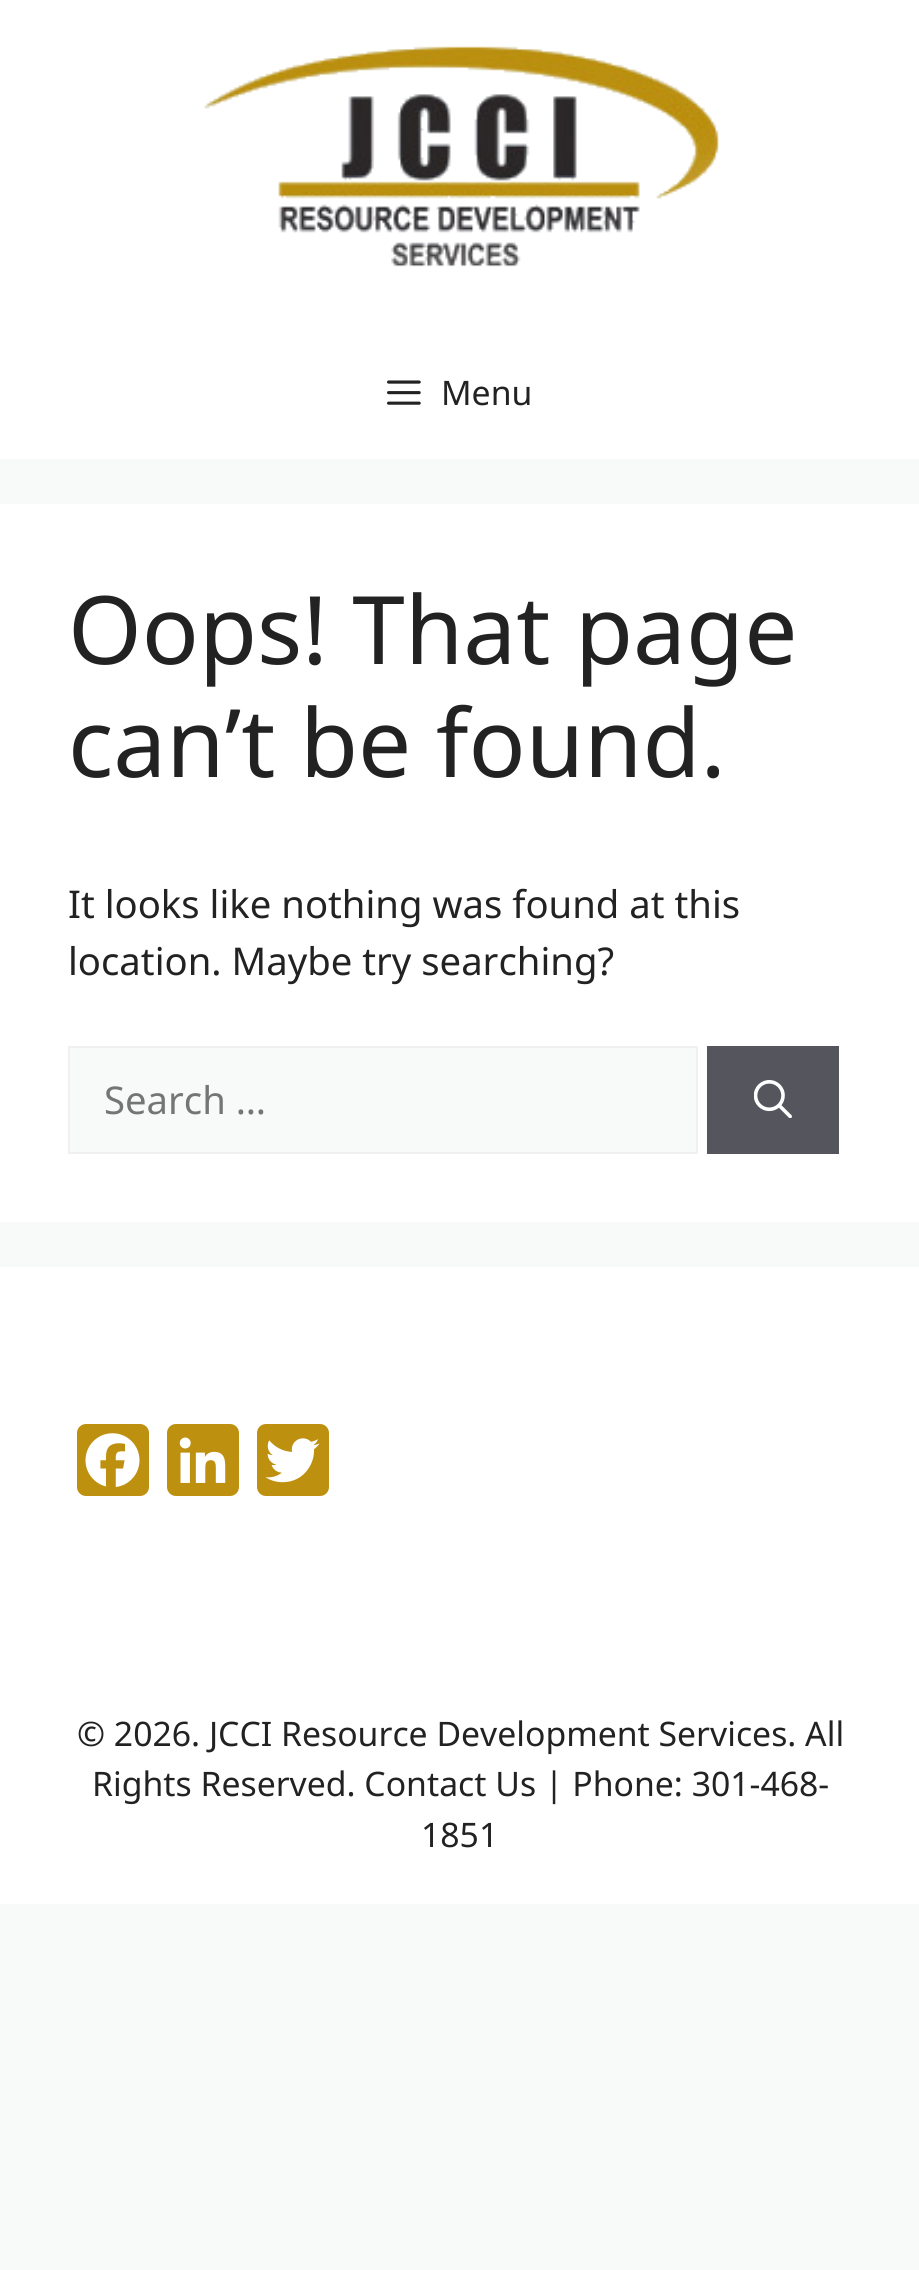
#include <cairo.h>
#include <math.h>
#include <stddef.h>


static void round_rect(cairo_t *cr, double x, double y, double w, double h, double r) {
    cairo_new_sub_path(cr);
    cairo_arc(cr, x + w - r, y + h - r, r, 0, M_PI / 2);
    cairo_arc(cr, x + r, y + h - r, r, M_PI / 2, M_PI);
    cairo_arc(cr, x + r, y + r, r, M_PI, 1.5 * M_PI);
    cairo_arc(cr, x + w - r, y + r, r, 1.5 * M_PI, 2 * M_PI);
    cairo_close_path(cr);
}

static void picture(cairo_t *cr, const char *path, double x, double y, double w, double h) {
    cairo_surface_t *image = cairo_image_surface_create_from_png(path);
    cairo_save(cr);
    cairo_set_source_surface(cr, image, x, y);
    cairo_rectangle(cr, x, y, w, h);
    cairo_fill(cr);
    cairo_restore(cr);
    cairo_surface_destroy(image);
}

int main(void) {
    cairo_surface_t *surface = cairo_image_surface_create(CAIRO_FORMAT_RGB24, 919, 2270);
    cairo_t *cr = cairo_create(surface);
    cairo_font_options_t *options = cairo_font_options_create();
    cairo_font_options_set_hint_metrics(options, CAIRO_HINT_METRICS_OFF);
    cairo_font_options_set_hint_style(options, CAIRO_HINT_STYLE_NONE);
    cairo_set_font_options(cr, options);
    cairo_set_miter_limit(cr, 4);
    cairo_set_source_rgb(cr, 0.969, 0.973, 0.976);
    cairo_paint(cr);
    cairo_set_source_rgb(cr, 1, 1, 1);
    cairo_rectangle(cr, 0, 0, 919, 459);
    cairo_fill(cr);
    picture(cr, "img1.png", 204, 46, 515, 221);
    picture(cr, "img2.png", 387, 380, 34, 25);
    cairo_select_font_face(cr, "Noto Sans", CAIRO_FONT_SLANT_NORMAL, CAIRO_FONT_WEIGHT_NORMAL);
    cairo_set_font_size(cr, 33.75);
    cairo_set_source_rgb(cr, 0.133, 0.133, 0.133);
    cairo_move_to(cr, 441, 405);
    cairo_show_text(cr, "Menu");
    cairo_set_source_rgb(cr, 1, 1, 1);
    cairo_rectangle(cr, 0, 504, 919, 718);
    cairo_fill(cr);
    cairo_set_font_size(cr, 94.5);
    cairo_set_source_rgb(cr, 0.133, 0.133, 0.133);
    cairo_move_to(cr, 68, 664);
    cairo_show_text(cr, "Oops! That page");
    cairo_move_to(cr, 68, 777);
    cairo_show_text(cr, "can’t be found.");
    cairo_set_font_size(cr, 38.25);
    cairo_move_to(cr, 68, 918);
    cairo_show_text(cr, "It looks like nothing was found at this");
    cairo_move_to(cr, 68, 975);
    cairo_show_text(cr, "location. Maybe try searching?");
    cairo_set_source_rgb(cr, 0.969, 0.973, 0.976);
    cairo_rectangle(cr, 69, 1047, 628, 106);
    cairo_fill_preserve(cr);
    cairo_set_source_rgb(cr, 0.941, 0.941, 0.941);
    cairo_stroke(cr);
    cairo_set_source_rgb(cr, 0.459, 0.459, 0.459);
    cairo_move_to(cr, 104, 1114);
    cairo_show_text(cr, "Search …");
    cairo_set_source_rgb(cr, 0.333, 0.333, 0.369);
    cairo_rectangle(cr, 707, 1046, 132, 108);
    cairo_fill(cr);
    picture(cr, "img3.png", 754, 1080, 38, 38);
    cairo_set_source_rgb(cr, 1, 1, 1);
    cairo_rectangle(cr, 0, 1267, 919, 637);
    cairo_fill(cr);
    cairo_set_source_rgb(cr, 0.741, 0.565, 0.059);
    round_rect(cr, 77, 1424, 72, 72, 9);
    cairo_fill(cr);
    picture(cr, "img4.png", 85, 1433, 55, 54);
    round_rect(cr, 167, 1424, 72, 72, 9);
    cairo_fill(cr);
    picture(cr, "img5.png", 179, 1437, 47, 46);
    round_rect(cr, 257, 1424, 72, 72, 9);
    cairo_fill(cr);
    picture(cr, "img6.png", 265, 1438, 55, 45);
    cairo_set_font_size(cr, 33.75);
    cairo_set_source_rgb(cr, 0.133, 0.133, 0.133);
    cairo_move_to(cr, 77, 1746);
    cairo_show_text(cr, "© 2026. JCCI Resource Development Services. All");
    cairo_move_to(cr, 92, 1796);
    cairo_show_text(cr, "Rights Reserved. Contact Us | Phone: 301-468-");
    cairo_move_to(cr, 421, 1847);
    cairo_show_text(cr, "1851");
    cairo_surface_write_to_png(surface, "page.png");
    cairo_font_options_destroy(options);
    cairo_destroy(cr);
    cairo_surface_destroy(surface);
    return 0;
}
